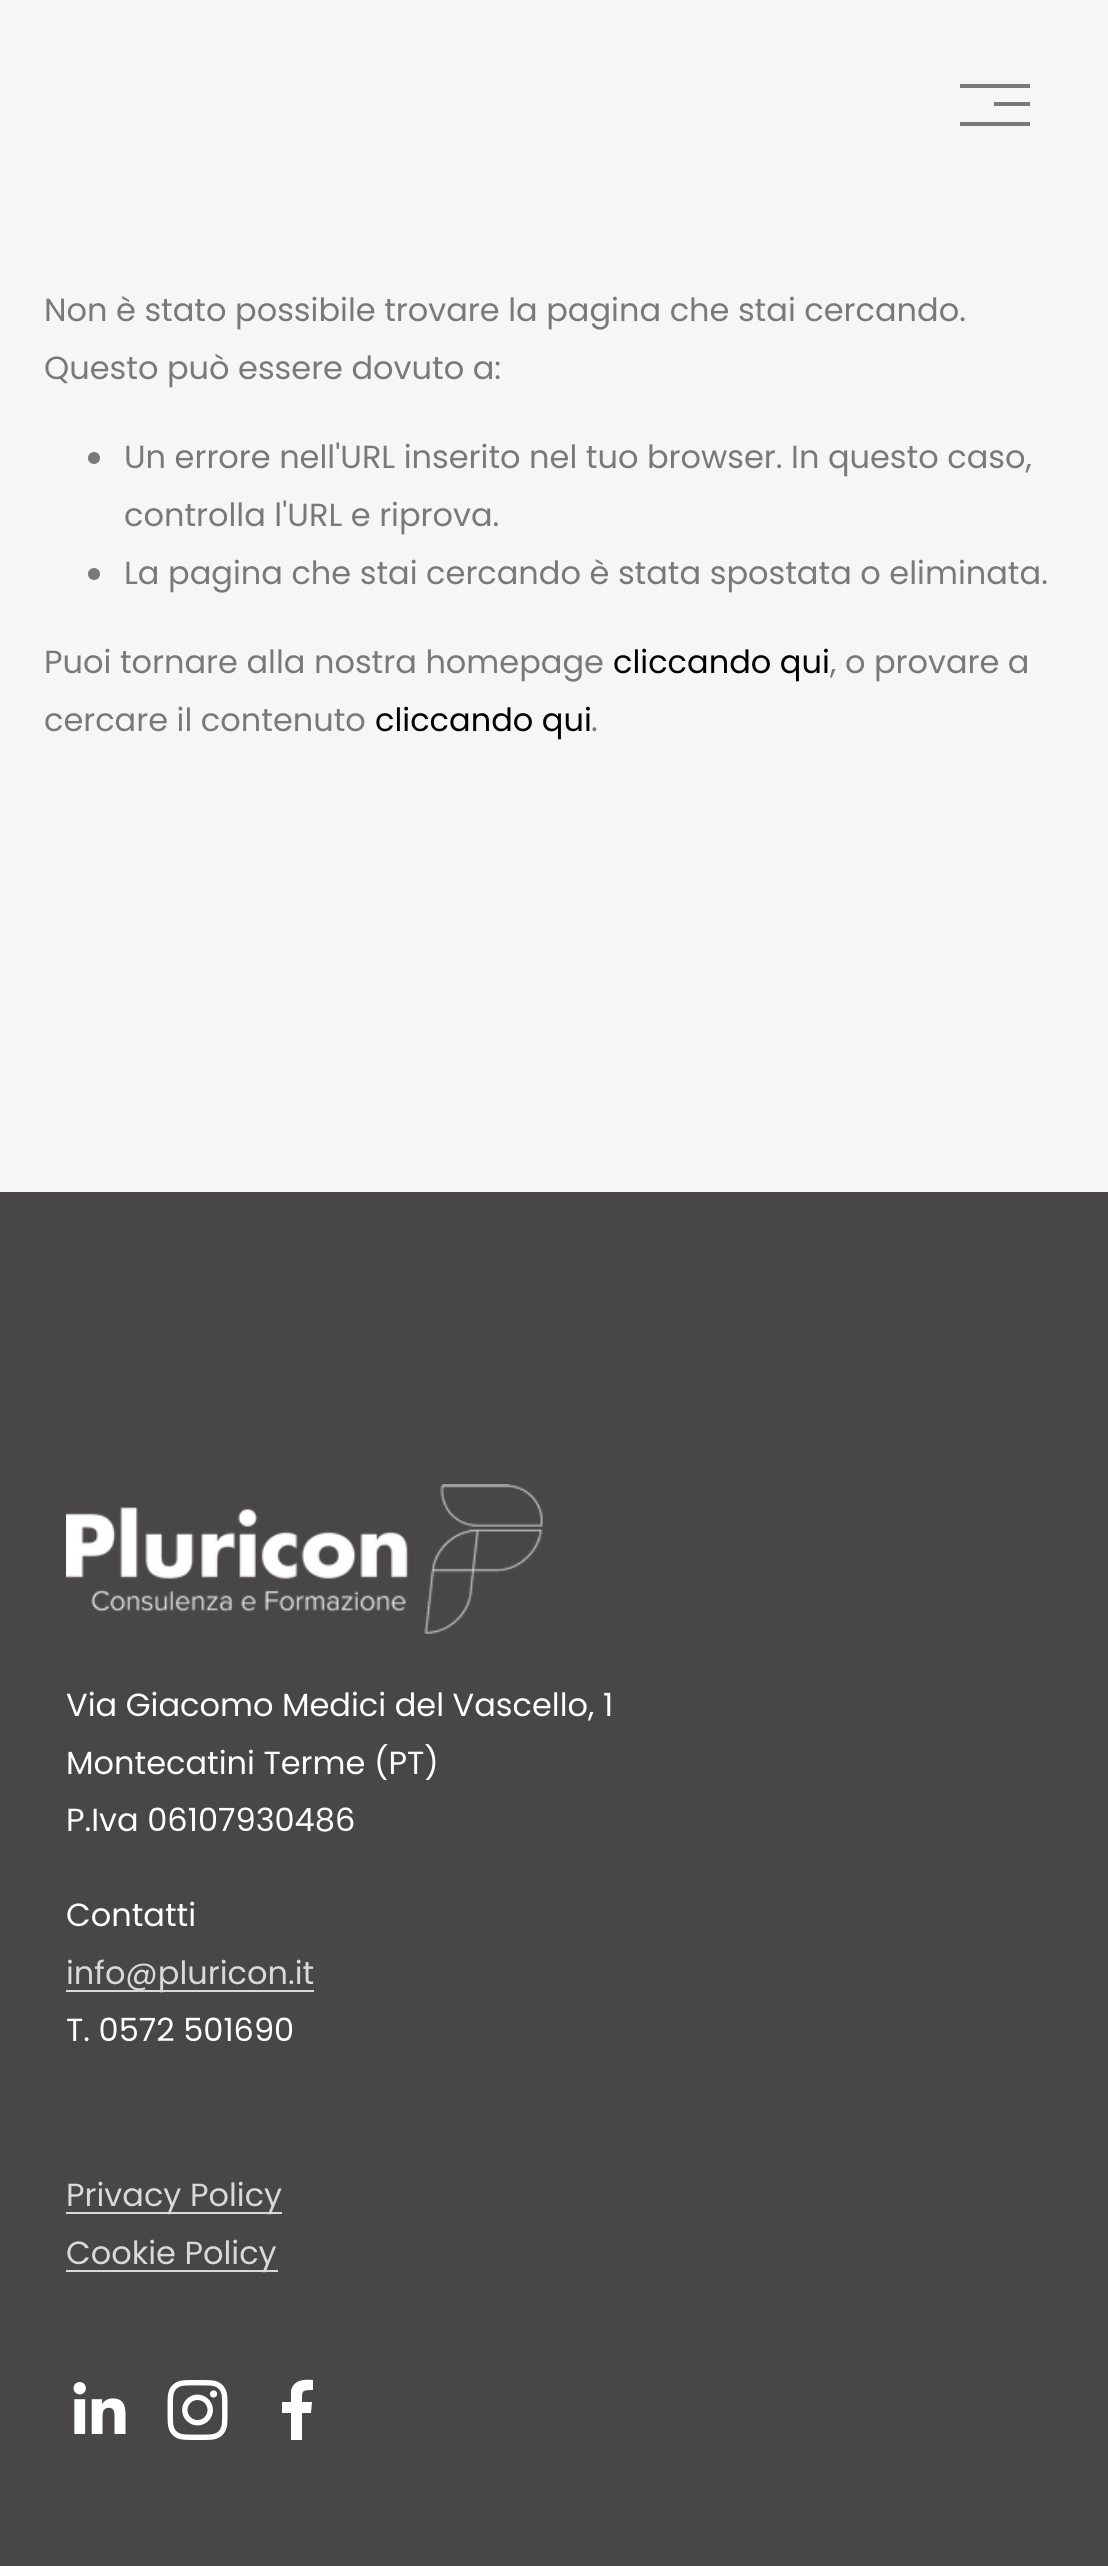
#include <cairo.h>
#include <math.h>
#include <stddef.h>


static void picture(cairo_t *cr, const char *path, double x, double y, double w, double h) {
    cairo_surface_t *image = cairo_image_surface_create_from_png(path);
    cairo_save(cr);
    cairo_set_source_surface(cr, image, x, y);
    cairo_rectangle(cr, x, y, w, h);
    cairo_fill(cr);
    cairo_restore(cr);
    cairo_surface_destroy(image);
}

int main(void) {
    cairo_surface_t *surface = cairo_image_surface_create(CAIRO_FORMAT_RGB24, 1108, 2566);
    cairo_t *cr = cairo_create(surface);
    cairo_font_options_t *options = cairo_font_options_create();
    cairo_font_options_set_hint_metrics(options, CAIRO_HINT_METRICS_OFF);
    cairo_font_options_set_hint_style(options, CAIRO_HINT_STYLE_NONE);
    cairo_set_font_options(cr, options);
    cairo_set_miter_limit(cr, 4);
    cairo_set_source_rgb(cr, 0.961, 0.961, 0.961);
    cairo_paint(cr);
    cairo_set_source_rgb(cr, 0.475, 0.475, 0.475);
    cairo_rectangle(cr, 960, 84, 70, 4);
    cairo_fill(cr);
    cairo_rectangle(cr, 994, 102, 36, 4);
    cairo_fill(cr);
    cairo_rectangle(cr, 960, 122, 70, 4);
    cairo_fill(cr);
    cairo_select_font_face(cr, "Poppins", CAIRO_FONT_SLANT_NORMAL, CAIRO_FONT_WEIGHT_NORMAL);
    cairo_set_font_size(cr, 32);
    cairo_move_to(cr, 44, 321);
    cairo_show_text(cr, "Non è stato possibile trovare la pagina che stai cercando.");
    cairo_move_to(cr, 44, 379);
    cairo_show_text(cr, "Questo può essere dovuto a:");
    cairo_new_path(cr);
    cairo_arc(cr, 94, 458, 6, 0, 2 * M_PI);
    cairo_fill(cr);
    cairo_move_to(cr, 124, 468);
    cairo_show_text(cr, "Un errore nell'URL inserito nel tuo browser. In questo caso,");
    cairo_move_to(cr, 124, 526);
    cairo_show_text(cr, "controlla l'URL e riprova.");
    cairo_new_path(cr);
    cairo_arc(cr, 94, 574, 6, 0, 2 * M_PI);
    cairo_fill(cr);
    cairo_move_to(cr, 124, 584);
    cairo_show_text(cr, "La pagina che stai cercando è stata spostata o eliminata.");
    cairo_move_to(cr, 44, 673);
    cairo_show_text(cr, "Puoi tornare alla nostra homepage");
    cairo_set_source_rgb(cr, 0, 0, 0);
    cairo_move_to(cr, 613, 673);
    cairo_show_text(cr, "cliccando qui");
    cairo_set_source_rgb(cr, 0.475, 0.475, 0.475);
    cairo_move_to(cr, 830, 673);
    cairo_show_text(cr, ", o provare a");
    cairo_move_to(cr, 44, 731);
    cairo_show_text(cr, "cercare il contenuto");
    cairo_set_source_rgb(cr, 0, 0, 0);
    cairo_move_to(cr, 375, 731);
    cairo_show_text(cr, "cliccando qui");
    cairo_set_source_rgb(cr, 0.475, 0.475, 0.475);
    cairo_move_to(cr, 591, 731);
    cairo_show_text(cr, ".");
    cairo_set_source_rgb(cr, 0.282, 0.275, 0.278);
    cairo_rectangle(cr, 0, 1192, 1108, 1374);
    cairo_fill(cr);
    picture(cr, "img1.png", 66, 1484, 477, 150);
    cairo_set_source_rgb(cr, 1, 1, 1);
    cairo_move_to(cr, 66, 1716);
    cairo_show_text(cr, "Via Giacomo Medici del Vascello, 1");
    cairo_move_to(cr, 66, 1774);
    cairo_show_text(cr, "Montecatini Terme (PT)");
    cairo_move_to(cr, 66, 1831);
    cairo_show_text(cr, "P.Iva 06107930486");
    cairo_move_to(cr, 66, 1926);
    cairo_show_text(cr, "Contatti");
    cairo_set_source_rgb(cr, 0.851, 0.851, 0.851);
    cairo_rectangle(cr, 66, 1990, 248, 2);
    cairo_fill(cr);
    cairo_move_to(cr, 66, 1984);
    cairo_show_text(cr, "info@pluricon.it");
    cairo_set_source_rgb(cr, 1, 1, 1);
    cairo_move_to(cr, 66, 2041);
    cairo_show_text(cr, "T. 0572 501690");
    cairo_set_source_rgb(cr, 0.851, 0.851, 0.851);
    cairo_rectangle(cr, 66, 2212, 216, 2);
    cairo_fill(cr);
    cairo_move_to(cr, 66, 2206);
    cairo_show_text(cr, "Privacy Policy");
    cairo_rectangle(cr, 66, 2270, 212, 2);
    cairo_fill(cr);
    cairo_move_to(cr, 66, 2264);
    cairo_show_text(cr, "Cookie Policy");
    picture(cr, "img2.png", 73, 2382, 53, 52);
    picture(cr, "img3.png", 167, 2380, 61, 60);
    cairo_set_source_rgb(cr, 1, 1, 1);
    cairo_new_path(cr);
    cairo_move_to(cr, 302, 2440);
    cairo_line_to(cr, 302, 2413);
    cairo_line_to(cr, 311, 2413);
    cairo_line_to(cr, 312, 2402);
    cairo_line_to(cr, 302, 2402);
    cairo_curve_to(cr, 302, 2391, 301, 2390, 313, 2390);
    cairo_line_to(cr, 313, 2380);
    cairo_curve_to(cr, 304, 2379, 293, 2380, 291, 2391);
    cairo_line_to(cr, 291, 2402);
    cairo_line_to(cr, 282, 2402);
    cairo_line_to(cr, 282, 2413);
    cairo_line_to(cr, 291, 2413);
    cairo_line_to(cr, 291, 2440);
    cairo_close_path(cr);
    cairo_fill(cr);
    cairo_surface_write_to_png(surface, "page.png");
    cairo_font_options_destroy(options);
    cairo_destroy(cr);
    cairo_surface_destroy(surface);
    return 0;
}
